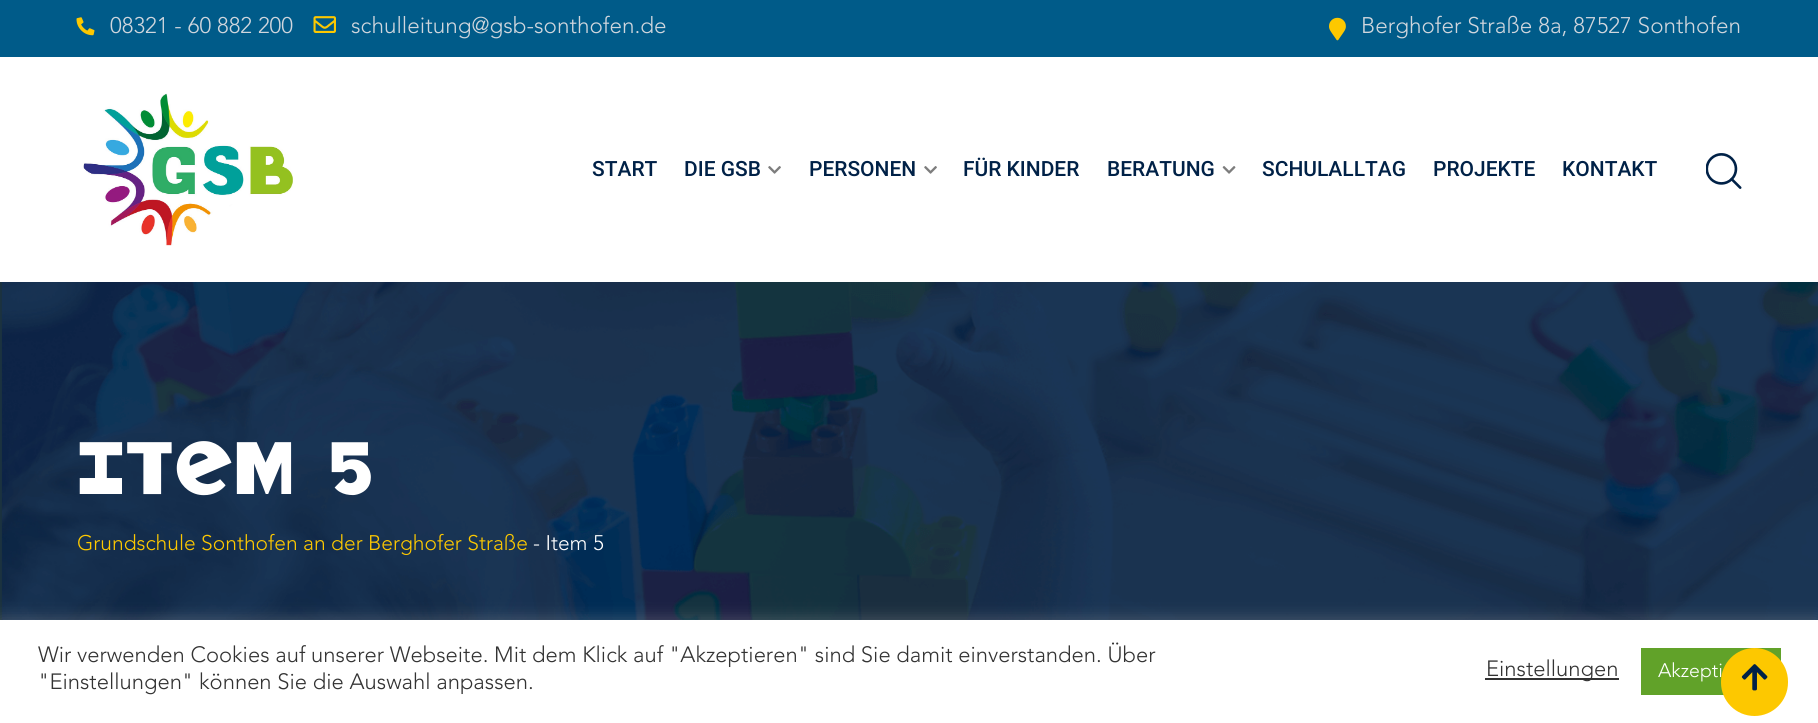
#include <cairo.h>
#include <math.h>
#include <stddef.h>


static void round_rect(cairo_t *cr, double x, double y, double w, double h, double r) {
    cairo_new_sub_path(cr);
    cairo_arc(cr, x + w - r, y + h - r, r, 0, M_PI / 2);
    cairo_arc(cr, x + r, y + h - r, r, M_PI / 2, M_PI);
    cairo_arc(cr, x + r, y + r, r, M_PI, 1.5 * M_PI);
    cairo_arc(cr, x + w - r, y + r, r, 1.5 * M_PI, 2 * M_PI);
    cairo_close_path(cr);
}

static void shadow(cairo_t *cr, double x, double y, double w, double h, double r, double blur, double alpha) {
    cairo_push_group_with_content(cr, CAIRO_CONTENT_ALPHA);
    cairo_set_operator(cr, CAIRO_OPERATOR_SOURCE);
    for (int i = 15; i >= -15 && fmin(w, h) + blur * i / 3 > 0; i -= 2) {
        double e = blur * i / 6;
        cairo_set_source_rgba(cr, 0, 0, 0, alpha * erfc((i - 1) / 8.5) / 2);
        round_rect(cr, x - e, y - e, w + 2 * e, h + 2 * e, fmax(0, fmin(r + e + blur * .6, fmin(w, h) / 2 + e)));
        cairo_fill(cr);
    }
    cairo_pattern_t *soft = cairo_pop_group(cr);
    cairo_mask(cr, soft);
    cairo_pattern_destroy(soft);
}

static void picture(cairo_t *cr, const char *path, double x, double y, double w, double h) {
    cairo_surface_t *image = cairo_image_surface_create_from_png(path);
    cairo_save(cr);
    cairo_set_source_surface(cr, image, x, y);
    cairo_rectangle(cr, x, y, w, h);
    cairo_fill(cr);
    cairo_restore(cr);
    cairo_surface_destroy(image);
}

int main(void) {
    cairo_surface_t *surface = cairo_image_surface_create(CAIRO_FORMAT_RGB24, 1818, 723);
    cairo_t *cr = cairo_create(surface);
    cairo_font_options_t *options = cairo_font_options_create();
    cairo_font_options_set_hint_metrics(options, CAIRO_HINT_METRICS_OFF);
    cairo_font_options_set_hint_style(options, CAIRO_HINT_STYLE_NONE);
    cairo_set_font_options(cr, options);
    cairo_set_miter_limit(cr, 4);
    cairo_set_source_rgb(cr, 1, 1, 1);
    cairo_paint(cr);
    cairo_set_source_rgb(cr, 0, 0.357, 0.537);
    cairo_rectangle(cr, 0, 0, 1818, 57);
    cairo_fill(cr);
    picture(cr, "img1.png", 76, 17, 19, 19);
    cairo_select_font_face(cr, "Avenir Light", CAIRO_FONT_SLANT_NORMAL, CAIRO_FONT_WEIGHT_NORMAL);
    cairo_set_font_size(cr, 22.5);
    cairo_set_source_rgb(cr, 0.816, 0.839, 0.867);
    cairo_move_to(cr, 110, 33);
    cairo_show_text(cr, "08321 - 60 882 200");
    picture(cr, "img2.png", 313, 16, 23, 17);
    cairo_move_to(cr, 351, 33);
    cairo_show_text(cr, "schulleitung@gsb-sonthofen.de");
    picture(cr, "img3.png", 1329, 17, 17, 24);
    cairo_move_to(cr, 1361, 33);
    cairo_show_text(cr, "Berghofer Straße 8a, 87527 Sonthofen");
    picture(cr, "img4.png", 83, 93, 210, 153);
    cairo_select_font_face(cr, "Roboto Medium", CAIRO_FONT_SLANT_NORMAL, CAIRO_FONT_WEIGHT_NORMAL);
    cairo_set_font_size(cr, 21);
    cairo_set_source_rgb(cr, 0, 0.129, 0.278);
    cairo_move_to(cr, 592, 176);
    cairo_show_text(cr, "START");
    cairo_move_to(cr, 684, 176);
    cairo_show_text(cr, "DIE GSB");
    picture(cr, "img5.png", 768, 166, 13, 8);
    cairo_move_to(cr, 809, 176);
    cairo_show_text(cr, "PERSONEN");
    picture(cr, "img5.png", 924, 166, 13, 8);
    cairo_move_to(cr, 963, 176);
    cairo_show_text(cr, "FÜR KINDER");
    cairo_move_to(cr, 1107, 176);
    cairo_show_text(cr, "BERATUNG");
    picture(cr, "img6.png", 1222, 166, 14, 8);
    cairo_move_to(cr, 1262, 176);
    cairo_show_text(cr, "SCHULALLTAG");
    cairo_move_to(cr, 1433, 176);
    cairo_show_text(cr, "PROJEKTE");
    cairo_move_to(cr, 1562, 176);
    cairo_show_text(cr, "KONTAKT");
    picture(cr, "img7.png", 1706, 153, 36, 36);
    picture(cr, "img8.png", 0, 282, 1818, 338);
    cairo_select_font_face(cr, "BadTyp", CAIRO_FONT_SLANT_NORMAL, CAIRO_FONT_WEIGHT_NORMAL);
    cairo_set_font_size(cr, 72);
    cairo_set_source_rgb(cr, 1, 1, 1);
    cairo_move_to(cr, 77, 494);
    cairo_show_text(cr, "Item 5");
    cairo_select_font_face(cr, "Avenir Light", CAIRO_FONT_SLANT_NORMAL, CAIRO_FONT_WEIGHT_NORMAL);
    cairo_set_font_size(cr, 21);
    cairo_set_source_rgb(cr, 0.992, 0.784, 0);
    cairo_move_to(cr, 77, 550);
    cairo_show_text(cr, "Grundschule Sonthofen an der Berghofer Straße");
    cairo_set_source_rgb(cr, 1, 1, 1);
    cairo_move_to(cr, 533, 550);
    cairo_show_text(cr, "- Item 5");
    cairo_set_source_rgb(cr, 0.675, 0.671, 0.671);
    shadow(cr, 0, 618, 1818, 104, 0, 7.5, 0.3);
    cairo_set_source_rgb(cr, 1, 1, 1);
    cairo_rectangle(cr, 0, 620, 1818, 103);
    cairo_fill(cr);
    cairo_set_font_size(cr, 22);
    cairo_set_source_rgb(cr, 0.2, 0.2, 0.2);
    cairo_move_to(cr, 38, 662);
    cairo_show_text(cr, "Wir verwenden Cookies auf unserer Webseite. Mit dem Klick auf \"Akzeptieren\" sind Sie damit einverstanden. Über");
    cairo_move_to(cr, 38, 689);
    cairo_show_text(cr, "\"Einstellungen\" können Sie die Auswahl anpassen.");
    cairo_rectangle(cr, 1485, 678, 134, 2);
    cairo_fill(cr);
    cairo_move_to(cr, 1486, 676);
    cairo_show_text(cr, "Einstellungen");
    cairo_set_source_rgb(cr, 0.38, 0.635, 0.161);
    cairo_rectangle(cr, 1641, 648, 140, 47);
    cairo_fill(cr);
    cairo_set_font_size(cr, 19.5);
    cairo_set_source_rgb(cr, 1, 1, 1);
    cairo_move_to(cr, 1658, 677);
    cairo_show_text(cr, "Akzepti");
    cairo_set_source_rgb(cr, 0.992, 0.784, 0);
    round_rect(cr, 1721, 648, 67, 68, 33.5);
    cairo_fill(cr);
    picture(cr, "img9.png", 1741, 664, 27, 27);
    cairo_surface_write_to_png(surface, "page.png");
    cairo_font_options_destroy(options);
    cairo_destroy(cr);
    cairo_surface_destroy(surface);
    return 0;
}
